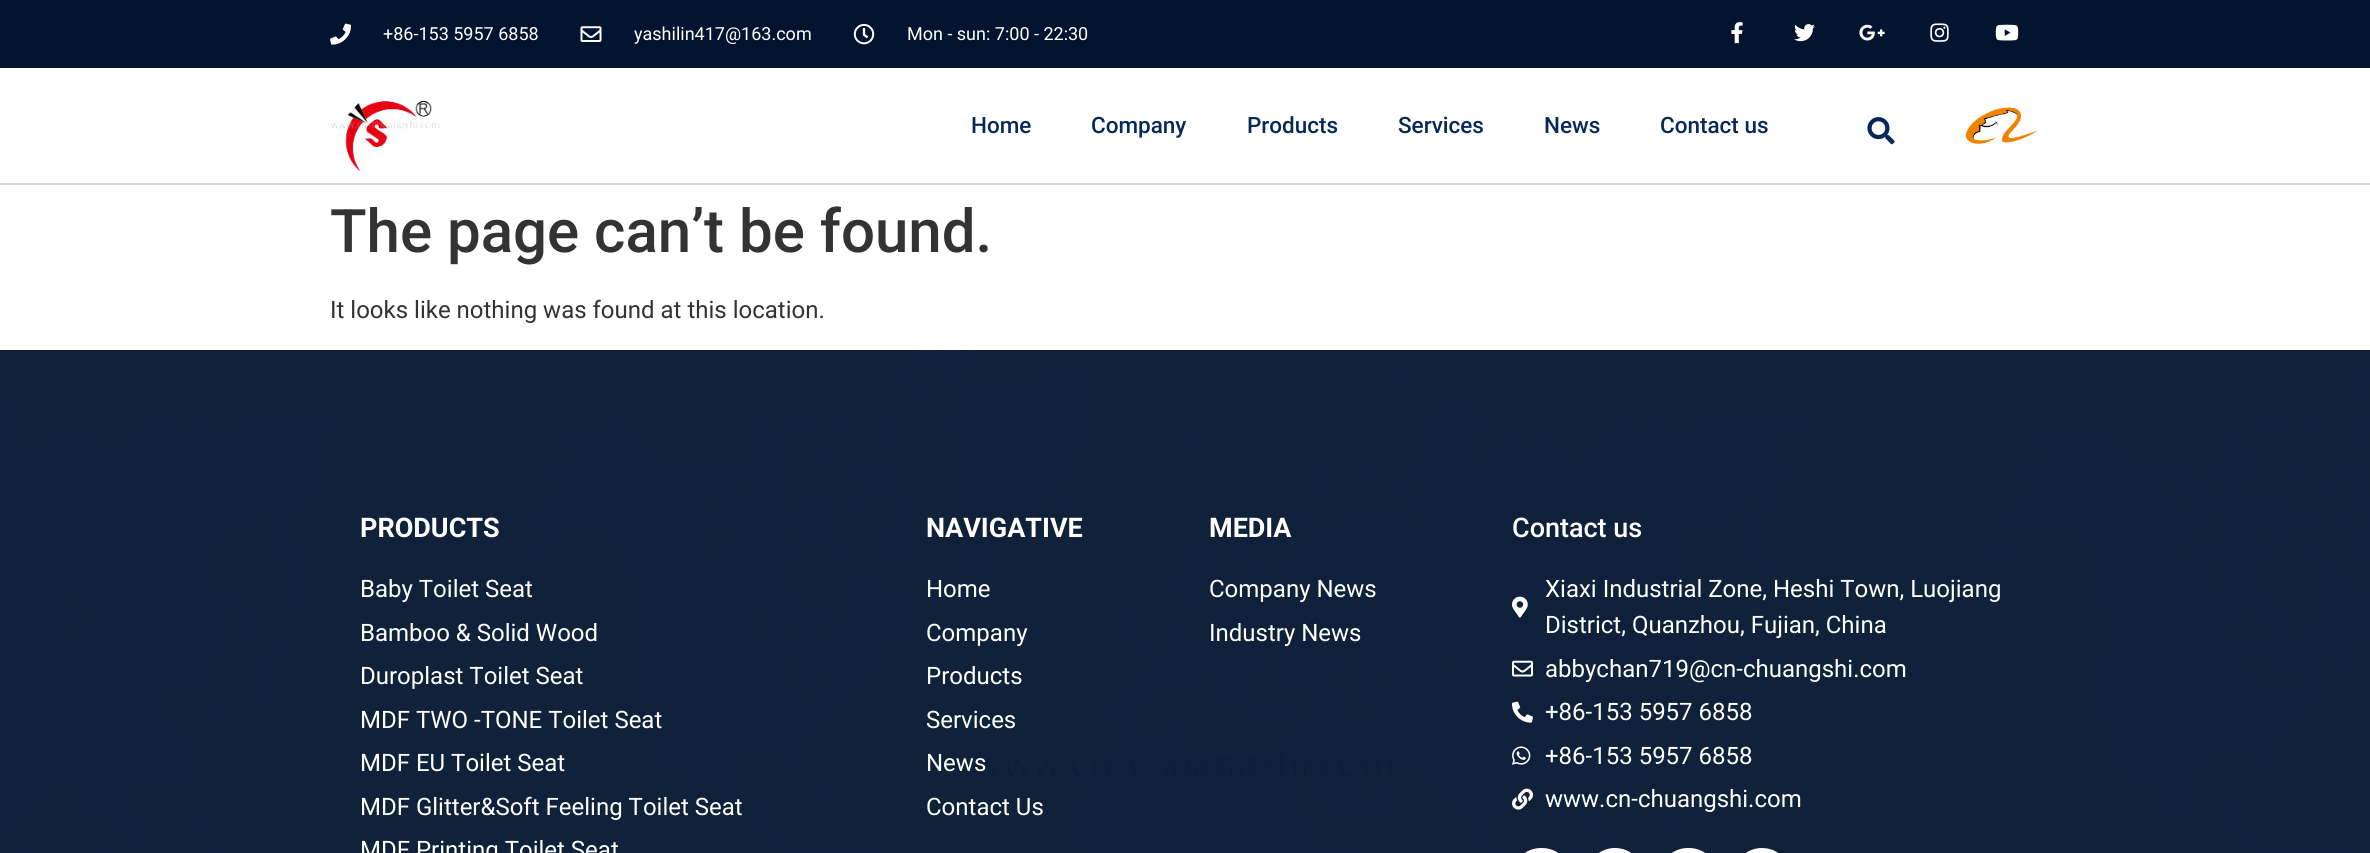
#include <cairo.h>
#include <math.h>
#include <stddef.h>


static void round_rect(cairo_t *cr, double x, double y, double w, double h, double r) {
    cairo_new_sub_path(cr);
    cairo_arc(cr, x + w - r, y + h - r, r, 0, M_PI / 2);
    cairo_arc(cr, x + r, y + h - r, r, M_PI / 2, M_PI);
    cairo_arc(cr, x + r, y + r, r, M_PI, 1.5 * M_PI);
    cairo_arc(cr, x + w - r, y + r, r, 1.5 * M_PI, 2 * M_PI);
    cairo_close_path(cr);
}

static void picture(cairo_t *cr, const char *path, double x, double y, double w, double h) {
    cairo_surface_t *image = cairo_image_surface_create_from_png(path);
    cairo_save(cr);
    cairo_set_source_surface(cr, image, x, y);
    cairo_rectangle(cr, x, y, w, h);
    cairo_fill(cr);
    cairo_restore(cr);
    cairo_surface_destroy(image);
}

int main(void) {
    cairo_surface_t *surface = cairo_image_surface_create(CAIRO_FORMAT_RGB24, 2370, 853);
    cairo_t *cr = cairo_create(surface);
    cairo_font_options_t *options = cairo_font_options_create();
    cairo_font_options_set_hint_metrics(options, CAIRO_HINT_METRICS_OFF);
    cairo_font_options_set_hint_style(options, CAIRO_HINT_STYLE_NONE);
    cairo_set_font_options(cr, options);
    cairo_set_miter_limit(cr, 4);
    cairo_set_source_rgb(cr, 1, 1, 1);
    cairo_paint(cr);
    cairo_set_source_rgb(cr, 0.012, 0.082, 0.188);
    cairo_rectangle(cr, 0, 0, 2370, 68);
    cairo_fill(cr);
    picture(cr, "img1.png", 330, 23, 21, 22);
    cairo_select_font_face(cr, "Roboto", CAIRO_FONT_SLANT_NORMAL, CAIRO_FONT_WEIGHT_NORMAL);
    cairo_set_font_size(cr, 18);
    cairo_set_source_rgb(cr, 1, 1, 1);
    cairo_move_to(cr, 383, 40);
    cairo_show_text(cr, "+86-153 5957 6858");
    picture(cr, "img2.png", 580, 26, 22, 16);
    cairo_move_to(cr, 634, 40);
    cairo_show_text(cr, "yashilin417@163.com");
    picture(cr, "img3.png", 853, 24, 22, 21);
    cairo_move_to(cr, 907, 40);
    cairo_show_text(cr, "Mon - sun: 7:00 - 22:30");
    picture(cr, "img4.png", 1731, 22, 12, 22);
    picture(cr, "img5.png", 1794, 24, 21, 18);
    picture(cr, "img6.png", 1859, 24, 26, 17);
    picture(cr, "img7.png", 1930, 23, 19, 19);
    picture(cr, "img8.png", 1995, 24, 24, 17);
    cairo_set_source_rgb(cr, 0.847, 0.847, 0.847);
    cairo_rectangle(cr, 0, 183, 2370, 2);
    cairo_fill(cr);
    picture(cr, "img9.png", 331, 100, 109, 72);
    cairo_select_font_face(cr, "Roboto Medium", CAIRO_FONT_SLANT_NORMAL, CAIRO_FONT_WEIGHT_NORMAL);
    cairo_set_font_size(cr, 22.5);
    cairo_set_source_rgb(cr, 0.027, 0.161, 0.353);
    cairo_move_to(cr, 971, 133);
    cairo_show_text(cr, "Home");
    cairo_move_to(cr, 1091, 133);
    cairo_show_text(cr, "Company");
    cairo_move_to(cr, 1247, 133);
    cairo_show_text(cr, "Products");
    cairo_move_to(cr, 1398, 133);
    cairo_show_text(cr, "Services");
    cairo_move_to(cr, 1544, 133);
    cairo_show_text(cr, "News");
    cairo_move_to(cr, 1660, 133);
    cairo_show_text(cr, "Contact us");
    picture(cr, "img10.png", 1867, 117, 28, 28);
    picture(cr, "img11.png", 1965, 107, 73, 37);
    cairo_set_font_size(cr, 60);
    cairo_set_source_rgb(cr, 0.2, 0.2, 0.2);
    cairo_move_to(cr, 330, 252);
    cairo_show_text(cr, "The page can’t be found.");
    cairo_select_font_face(cr, "Roboto", CAIRO_FONT_SLANT_NORMAL, CAIRO_FONT_WEIGHT_NORMAL);
    cairo_set_font_size(cr, 24);
    cairo_move_to(cr, 330, 318);
    cairo_show_text(cr, "It looks like nothing was found at this location.");
    picture(cr, "img12.png", 0, 349, 2370, 504);
    cairo_select_font_face(cr, "Roboto", CAIRO_FONT_SLANT_NORMAL, CAIRO_FONT_WEIGHT_BOLD);
    cairo_set_font_size(cr, 27);
    cairo_set_source_rgb(cr, 1, 1, 1);
    cairo_move_to(cr, 360, 537);
    cairo_show_text(cr, "PRODUCTS");
    cairo_select_font_face(cr, "Roboto", CAIRO_FONT_SLANT_NORMAL, CAIRO_FONT_WEIGHT_NORMAL);
    cairo_set_font_size(cr, 24);
    cairo_move_to(cr, 360, 597);
    cairo_show_text(cr, "Baby Toilet Seat");
    cairo_move_to(cr, 360, 641);
    cairo_show_text(cr, "Bamboo & Solid Wood");
    cairo_move_to(cr, 360, 684);
    cairo_show_text(cr, "Duroplast Toilet Seat");
    cairo_move_to(cr, 360, 728);
    cairo_show_text(cr, "MDF TWO -TONE Toilet Seat");
    cairo_move_to(cr, 360, 771);
    cairo_show_text(cr, "MDF EU Toilet Seat");
    cairo_move_to(cr, 360, 815);
    cairo_show_text(cr, "MDF Glitter&Soft Feeling Toilet Seat");
    cairo_move_to(cr, 360, 858);
    cairo_show_text(cr, "MDF Printing Toilet Seat");
    cairo_select_font_face(cr, "Roboto", CAIRO_FONT_SLANT_NORMAL, CAIRO_FONT_WEIGHT_BOLD);
    cairo_set_font_size(cr, 27);
    cairo_move_to(cr, 926, 537);
    cairo_show_text(cr, "NAVIGATIVE");
    cairo_select_font_face(cr, "Roboto", CAIRO_FONT_SLANT_NORMAL, CAIRO_FONT_WEIGHT_NORMAL);
    cairo_set_font_size(cr, 24);
    cairo_move_to(cr, 926, 597);
    cairo_show_text(cr, "Home");
    cairo_move_to(cr, 926, 641);
    cairo_show_text(cr, "Company");
    cairo_move_to(cr, 926, 684);
    cairo_show_text(cr, "Products");
    cairo_move_to(cr, 926, 728);
    cairo_show_text(cr, "Services");
    cairo_move_to(cr, 926, 771);
    cairo_show_text(cr, "News");
    cairo_move_to(cr, 926, 815);
    cairo_show_text(cr, "Contact Us");
    cairo_select_font_face(cr, "Roboto", CAIRO_FONT_SLANT_NORMAL, CAIRO_FONT_WEIGHT_BOLD);
    cairo_set_font_size(cr, 27);
    cairo_move_to(cr, 1209, 537);
    cairo_show_text(cr, "MEDIA");
    cairo_select_font_face(cr, "Roboto", CAIRO_FONT_SLANT_NORMAL, CAIRO_FONT_WEIGHT_NORMAL);
    cairo_set_font_size(cr, 24);
    cairo_move_to(cr, 1209, 597);
    cairo_show_text(cr, "Company News");
    cairo_move_to(cr, 1209, 641);
    cairo_show_text(cr, "Industry News");
    cairo_select_font_face(cr, "Roboto Medium", CAIRO_FONT_SLANT_NORMAL, CAIRO_FONT_WEIGHT_NORMAL);
    cairo_set_font_size(cr, 27);
    cairo_move_to(cr, 1512, 537);
    cairo_show_text(cr, "Contact us");
    picture(cr, "img13.png", 1512, 596, 16, 22);
    cairo_select_font_face(cr, "Roboto", CAIRO_FONT_SLANT_NORMAL, CAIRO_FONT_WEIGHT_NORMAL);
    cairo_set_font_size(cr, 24);
    cairo_move_to(cr, 1545, 597);
    cairo_show_text(cr, "Xiaxi Industrial Zone, Heshi Town, Luojiang");
    cairo_move_to(cr, 1545, 633);
    cairo_show_text(cr, "District, Quanzhou, Fujian, China");
    picture(cr, "img14.png", 1512, 660, 21, 17);
    cairo_move_to(cr, 1545, 677);
    cairo_show_text(cr, "abbychan719@cn-chuangshi.com");
    picture(cr, "img15.png", 1512, 701, 21, 22);
    cairo_move_to(cr, 1545, 720);
    cairo_show_text(cr, "+86-153 5957 6858");
    picture(cr, "img16.png", 1512, 746, 19, 19);
    cairo_move_to(cr, 1545, 764);
    cairo_show_text(cr, "+86-153 5957 6858");
    picture(cr, "img17.png", 1512, 788, 21, 22);
    cairo_move_to(cr, 1545, 807);
    cairo_show_text(cr, "www.cn-chuangshi.com");
    round_rect(cr, 1512, 848, 59, 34, 29);
    cairo_fill(cr);
    round_rect(cr, 1586, 848, 58, 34, 29);
    cairo_fill(cr);
    round_rect(cr, 1659, 848, 59, 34, 29);
    cairo_fill(cr);
    round_rect(cr, 1733, 848, 58, 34, 29);
    cairo_fill(cr);
    cairo_surface_write_to_png(surface, "page.png");
    cairo_font_options_destroy(options);
    cairo_destroy(cr);
    cairo_surface_destroy(surface);
    return 0;
}
